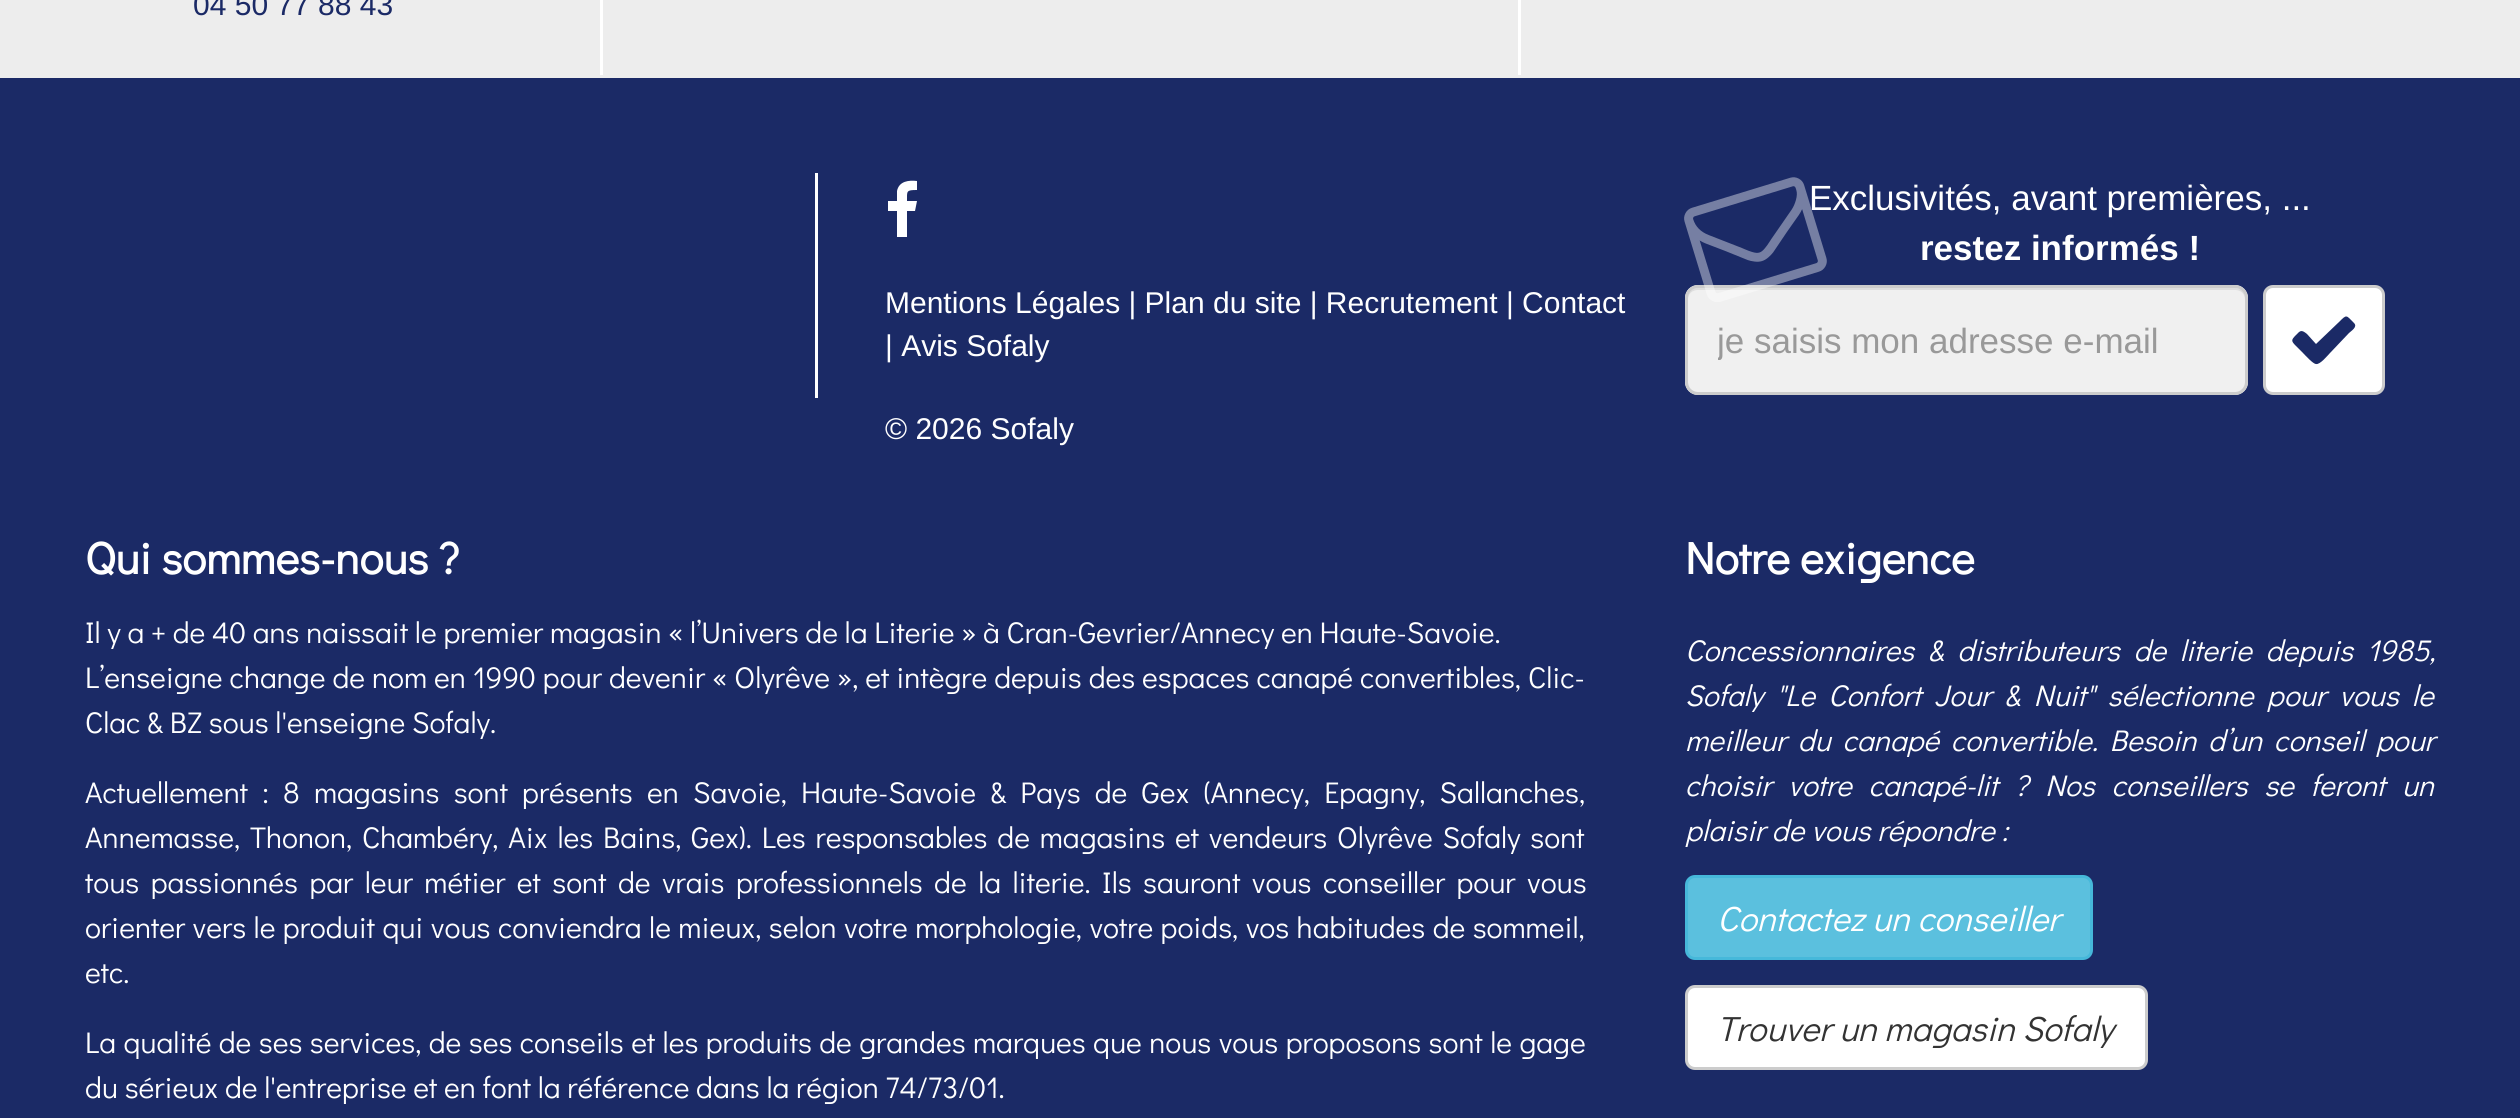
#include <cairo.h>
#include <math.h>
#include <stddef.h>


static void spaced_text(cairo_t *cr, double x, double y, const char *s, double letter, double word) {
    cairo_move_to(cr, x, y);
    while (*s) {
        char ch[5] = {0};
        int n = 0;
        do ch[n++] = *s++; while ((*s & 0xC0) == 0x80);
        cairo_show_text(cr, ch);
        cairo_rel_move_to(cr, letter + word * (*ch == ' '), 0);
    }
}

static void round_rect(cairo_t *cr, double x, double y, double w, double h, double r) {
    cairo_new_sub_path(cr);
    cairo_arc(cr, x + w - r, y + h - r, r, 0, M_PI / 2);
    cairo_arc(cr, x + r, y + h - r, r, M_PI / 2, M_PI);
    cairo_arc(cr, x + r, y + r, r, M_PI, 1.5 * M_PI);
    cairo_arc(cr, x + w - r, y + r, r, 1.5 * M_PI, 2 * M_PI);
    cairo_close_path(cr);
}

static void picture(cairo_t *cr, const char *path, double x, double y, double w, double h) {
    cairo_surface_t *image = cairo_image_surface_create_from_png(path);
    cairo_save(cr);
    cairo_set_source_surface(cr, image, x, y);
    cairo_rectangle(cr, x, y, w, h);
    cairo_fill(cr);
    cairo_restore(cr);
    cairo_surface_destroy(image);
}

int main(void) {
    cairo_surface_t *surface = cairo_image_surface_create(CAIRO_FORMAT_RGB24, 2520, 1118);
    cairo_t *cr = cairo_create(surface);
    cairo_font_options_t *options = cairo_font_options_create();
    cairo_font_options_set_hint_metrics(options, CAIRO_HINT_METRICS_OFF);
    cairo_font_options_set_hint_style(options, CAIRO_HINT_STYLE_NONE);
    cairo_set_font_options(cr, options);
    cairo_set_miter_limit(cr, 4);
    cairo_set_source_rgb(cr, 0.929, 0.929, 0.929);
    cairo_paint(cr);
    cairo_select_font_face(cr, "Liberation Sans", CAIRO_FONT_SLANT_NORMAL, CAIRO_FONT_WEIGHT_NORMAL);
    cairo_set_font_size(cr, 30);
    cairo_set_source_rgb(cr, 0.106, 0.165, 0.4);
    cairo_move_to(cr, 193, 15);
    cairo_show_text(cr, "04 50 77 88 43");
    cairo_set_source_rgb(cr, 1, 1, 1);
    cairo_rectangle(cr, 600, 0, 3, 75);
    cairo_fill(cr);
    cairo_rectangle(cr, 1518, 0, 3, 75);
    cairo_fill(cr);
    cairo_set_source_rgb(cr, 0.106, 0.165, 0.4);
    cairo_rectangle(cr, 0, 78, 2520, 1040);
    cairo_fill(cr);
    cairo_set_source_rgb(cr, 1, 1, 1);
    cairo_rectangle(cr, 815, 173, 3, 225);
    cairo_fill(cr);
    cairo_new_path(cr);
    cairo_move_to(cr, 917, 181);
    cairo_line_to(cr, 917, 190);
    cairo_curve_to(cr, 906, 190, 907, 191, 907, 201);
    cairo_line_to(cr, 917, 201);
    cairo_line_to(cr, 915, 211);
    cairo_line_to(cr, 907, 211);
    cairo_line_to(cr, 907, 237);
    cairo_line_to(cr, 897, 237);
    cairo_line_to(cr, 897, 211);
    cairo_line_to(cr, 888, 211);
    cairo_line_to(cr, 888, 201);
    cairo_line_to(cr, 897, 201);
    cairo_line_to(cr, 897, 191);
    cairo_curve_to(cr, 899, 181, 909, 180, 917, 181);
    cairo_close_path(cr);
    cairo_fill(cr);
    cairo_move_to(cr, 885, 313);
    cairo_show_text(cr, "Mentions Légales | Plan du site | Recrutement | Contact");
    cairo_move_to(cr, 885, 356);
    cairo_show_text(cr, "| Avis Sofaly");
    cairo_move_to(cr, 885, 439);
    cairo_show_text(cr, "© 2026 Sofaly");
    cairo_set_font_size(cr, 35);
    cairo_move_to(cr, 1809, 210);
    cairo_show_text(cr, "Exclusivités, avant premières, ...");
    cairo_set_source_rgb(cr, 0.941, 0.941, 0.941);
    round_rect(cr, 1685, 285, 563, 110, 13);
    cairo_fill(cr);
    cairo_set_source_rgb(cr, 0.871, 0.871, 0.871);
    cairo_new_path(cr);
    cairo_move_to(cr, 1698, 290);
    cairo_line_to(cr, 2235, 290);
    cairo_curve_to(cr, 2241, 290, 2245, 294, 2245, 300);
    cairo_line_to(cr, 2245, 298);
    cairo_curve_to(cr, 2245, 292, 2241, 288, 2235, 288);
    cairo_line_to(cr, 1698, 288);
    cairo_curve_to(cr, 1692, 288, 1688, 292, 1688, 298);
    cairo_line_to(cr, 1688, 300);
    cairo_curve_to(cr, 1688, 294, 1692, 290, 1698, 290);
    cairo_close_path(cr);
    cairo_fill(cr);
    round_rect(cr, 1686.5, 286.5, 560, 107, 11.5);
    cairo_set_source_rgb(cr, 0.8, 0.8, 0.8);
    cairo_set_line_width(cr, 3);
    cairo_stroke(cr);
    picture(cr, "img1.png", 1684, 177, 143, 125);
    cairo_select_font_face(cr, "Liberation Sans", CAIRO_FONT_SLANT_NORMAL, CAIRO_FONT_WEIGHT_BOLD);
    cairo_set_source_rgb(cr, 1, 1, 1);
    cairo_move_to(cr, 1920, 260);
    cairo_show_text(cr, "restez informés !");
    cairo_save(cr);
    cairo_rectangle(cr, 1718, 320, 497, 40);
    cairo_clip(cr);
    cairo_select_font_face(cr, "Liberation Sans", CAIRO_FONT_SLANT_NORMAL, CAIRO_FONT_WEIGHT_NORMAL);
    cairo_set_source_rgb(cr, 0.6, 0.6, 0.6);
    cairo_move_to(cr, 1717, 353);
    cairo_show_text(cr, "je saisis mon adresse e-mail");
    cairo_restore(cr);
    round_rect(cr, 2264.5, 286.5, 119, 107, 8.5);
    cairo_fill_preserve(cr);
    cairo_set_source_rgb(cr, 0.8, 0.8, 0.8);
    cairo_stroke(cr);
    cairo_set_source_rgb(cr, 0.106, 0.165, 0.4);
    cairo_new_path(cr);
    cairo_move_to(cr, 2354, 323);
    cairo_curve_to(cr, 2358, 327, 2351, 331, 2349, 333);
    cairo_line_to(cr, 2330, 353);
    cairo_curve_to(cr, 2328, 355, 2320, 365, 2316, 364);
    cairo_curve_to(cr, 2313, 364, 2305, 355, 2303, 353);
    cairo_line_to(cr, 2296, 346);
    cairo_curve_to(cr, 2291, 341, 2291, 340, 2296, 335);
    cairo_curve_to(cr, 2300, 331, 2301, 329, 2307, 334);
    cairo_line_to(cr, 2316, 344);
    cairo_line_to(cr, 2339, 322);
    cairo_curve_to(cr, 2347, 314, 2346, 315, 2354, 323);
    cairo_close_path(cr);
    cairo_fill(cr);
    cairo_select_font_face(cr, "Didact Gothic", CAIRO_FONT_SLANT_NORMAL, CAIRO_FONT_WEIGHT_BOLD);
    cairo_set_font_size(cr, 45);
    cairo_set_source_rgb(cr, 1, 1, 1);
    cairo_move_to(cr, 85, 574);
    cairo_show_text(cr, "Qui sommes-nous ?");
    cairo_select_font_face(cr, "Didact Gothic", CAIRO_FONT_SLANT_NORMAL, CAIRO_FONT_WEIGHT_NORMAL);
    cairo_set_font_size(cr, 30);
    cairo_move_to(cr, 85, 643);
    cairo_show_text(cr, "Il y a + de 40 ans naissait le premier magasin « l’Univers de la Literie » à Cran-Gevrier/Annecy en Haute-Savoie.");
    spaced_text(cr, 85, 688, "L’enseigne change de nom en 1990 pour devenir « Olyrêve », et intègre depuis des espaces canapé convertibles, Clic-", 0, 0.3);
    cairo_move_to(cr, 85, 733);
    cairo_show_text(cr, "Clac & BZ sous l'enseigne Sofaly.");
    spaced_text(cr, 85, 803, "Actuellement : 8 magasins sont présents en Savoie, Haute-Savoie & Pays de Gex (Annecy, Epagny, Sallanches,", 0, 7.5);
    spaced_text(cr, 85, 848, "Annemasse, Thonon, Chambéry, Aix les Bains, Gex). Les responsables de magasins et vendeurs Olyrêve Sofaly sont", 0, 3.1);
    spaced_text(cr, 85, 893, "tous passionnés par leur métier et sont de vrais professionnels de la literie. Ils sauront vous conseiller pour vous", 0, 4.75);
    spaced_text(cr, 85, 938, "orienter vers le produit qui vous conviendra le mieux, selon votre morphologie, votre poids, vos habitudes de sommeil,", 0, 0.75);
    cairo_move_to(cr, 85, 983);
    cairo_show_text(cr, "etc.");
    spaced_text(cr, 85, 1053, "La qualité de ses services, de ses conseils et les produits de grandes marques que nous vous proposons sont le gage", 0, 0.7);
    cairo_move_to(cr, 85, 1098);
    cairo_show_text(cr, "du sérieux de l'entreprise et en font la référence dans la région 74/73/01.");
    cairo_select_font_face(cr, "Didact Gothic", CAIRO_FONT_SLANT_NORMAL, CAIRO_FONT_WEIGHT_BOLD);
    cairo_set_font_size(cr, 45);
    cairo_move_to(cr, 1685, 574);
    cairo_show_text(cr, "Notre exigence");
    cairo_select_font_face(cr, "Didact Gothic", CAIRO_FONT_SLANT_ITALIC, CAIRO_FONT_WEIGHT_NORMAL);
    cairo_set_font_size(cr, 30);
    spaced_text(cr, 1685, 661, "Concessionnaires & distributeurs de literie depuis 1985,", 0, 7);
    spaced_text(cr, 1685, 706, "Sofaly \"Le Confort Jour & Nuit\" sélectionne pour vous le", 0, 6.5);
    spaced_text(cr, 1685, 751, "meilleur du canapé convertible. Besoin d’un conseil pour", 0, 5);
    spaced_text(cr, 1685, 796, "choisir votre canapé-lit ? Nos conseillers se feront un", 0, 10);
    cairo_move_to(cr, 1685, 841);
    cairo_show_text(cr, "plaisir de vous répondre :");
    cairo_set_source_rgb(cr, 0.357, 0.753, 0.871);
    round_rect(cr, 1686.5, 876.5, 405, 82, 8.5);
    cairo_fill_preserve(cr);
    cairo_set_source_rgb(cr, 0.275, 0.722, 0.855);
    cairo_stroke(cr);
    cairo_set_font_size(cr, 35);
    cairo_set_source_rgb(cr, 1, 1, 1);
    cairo_move_to(cr, 1717, 931);
    cairo_show_text(cr, "Contactez un conseiller");
    round_rect(cr, 1686.5, 986.5, 460, 82, 8.5);
    cairo_fill_preserve(cr);
    cairo_set_source_rgb(cr, 0.8, 0.8, 0.8);
    cairo_stroke(cr);
    cairo_set_source_rgb(cr, 0.2, 0.2, 0.2);
    cairo_move_to(cr, 1717, 1041);
    cairo_show_text(cr, "Trouver un magasin Sofaly");
    cairo_surface_write_to_png(surface, "page.png");
    cairo_font_options_destroy(options);
    cairo_destroy(cr);
    cairo_surface_destroy(surface);
    return 0;
}
